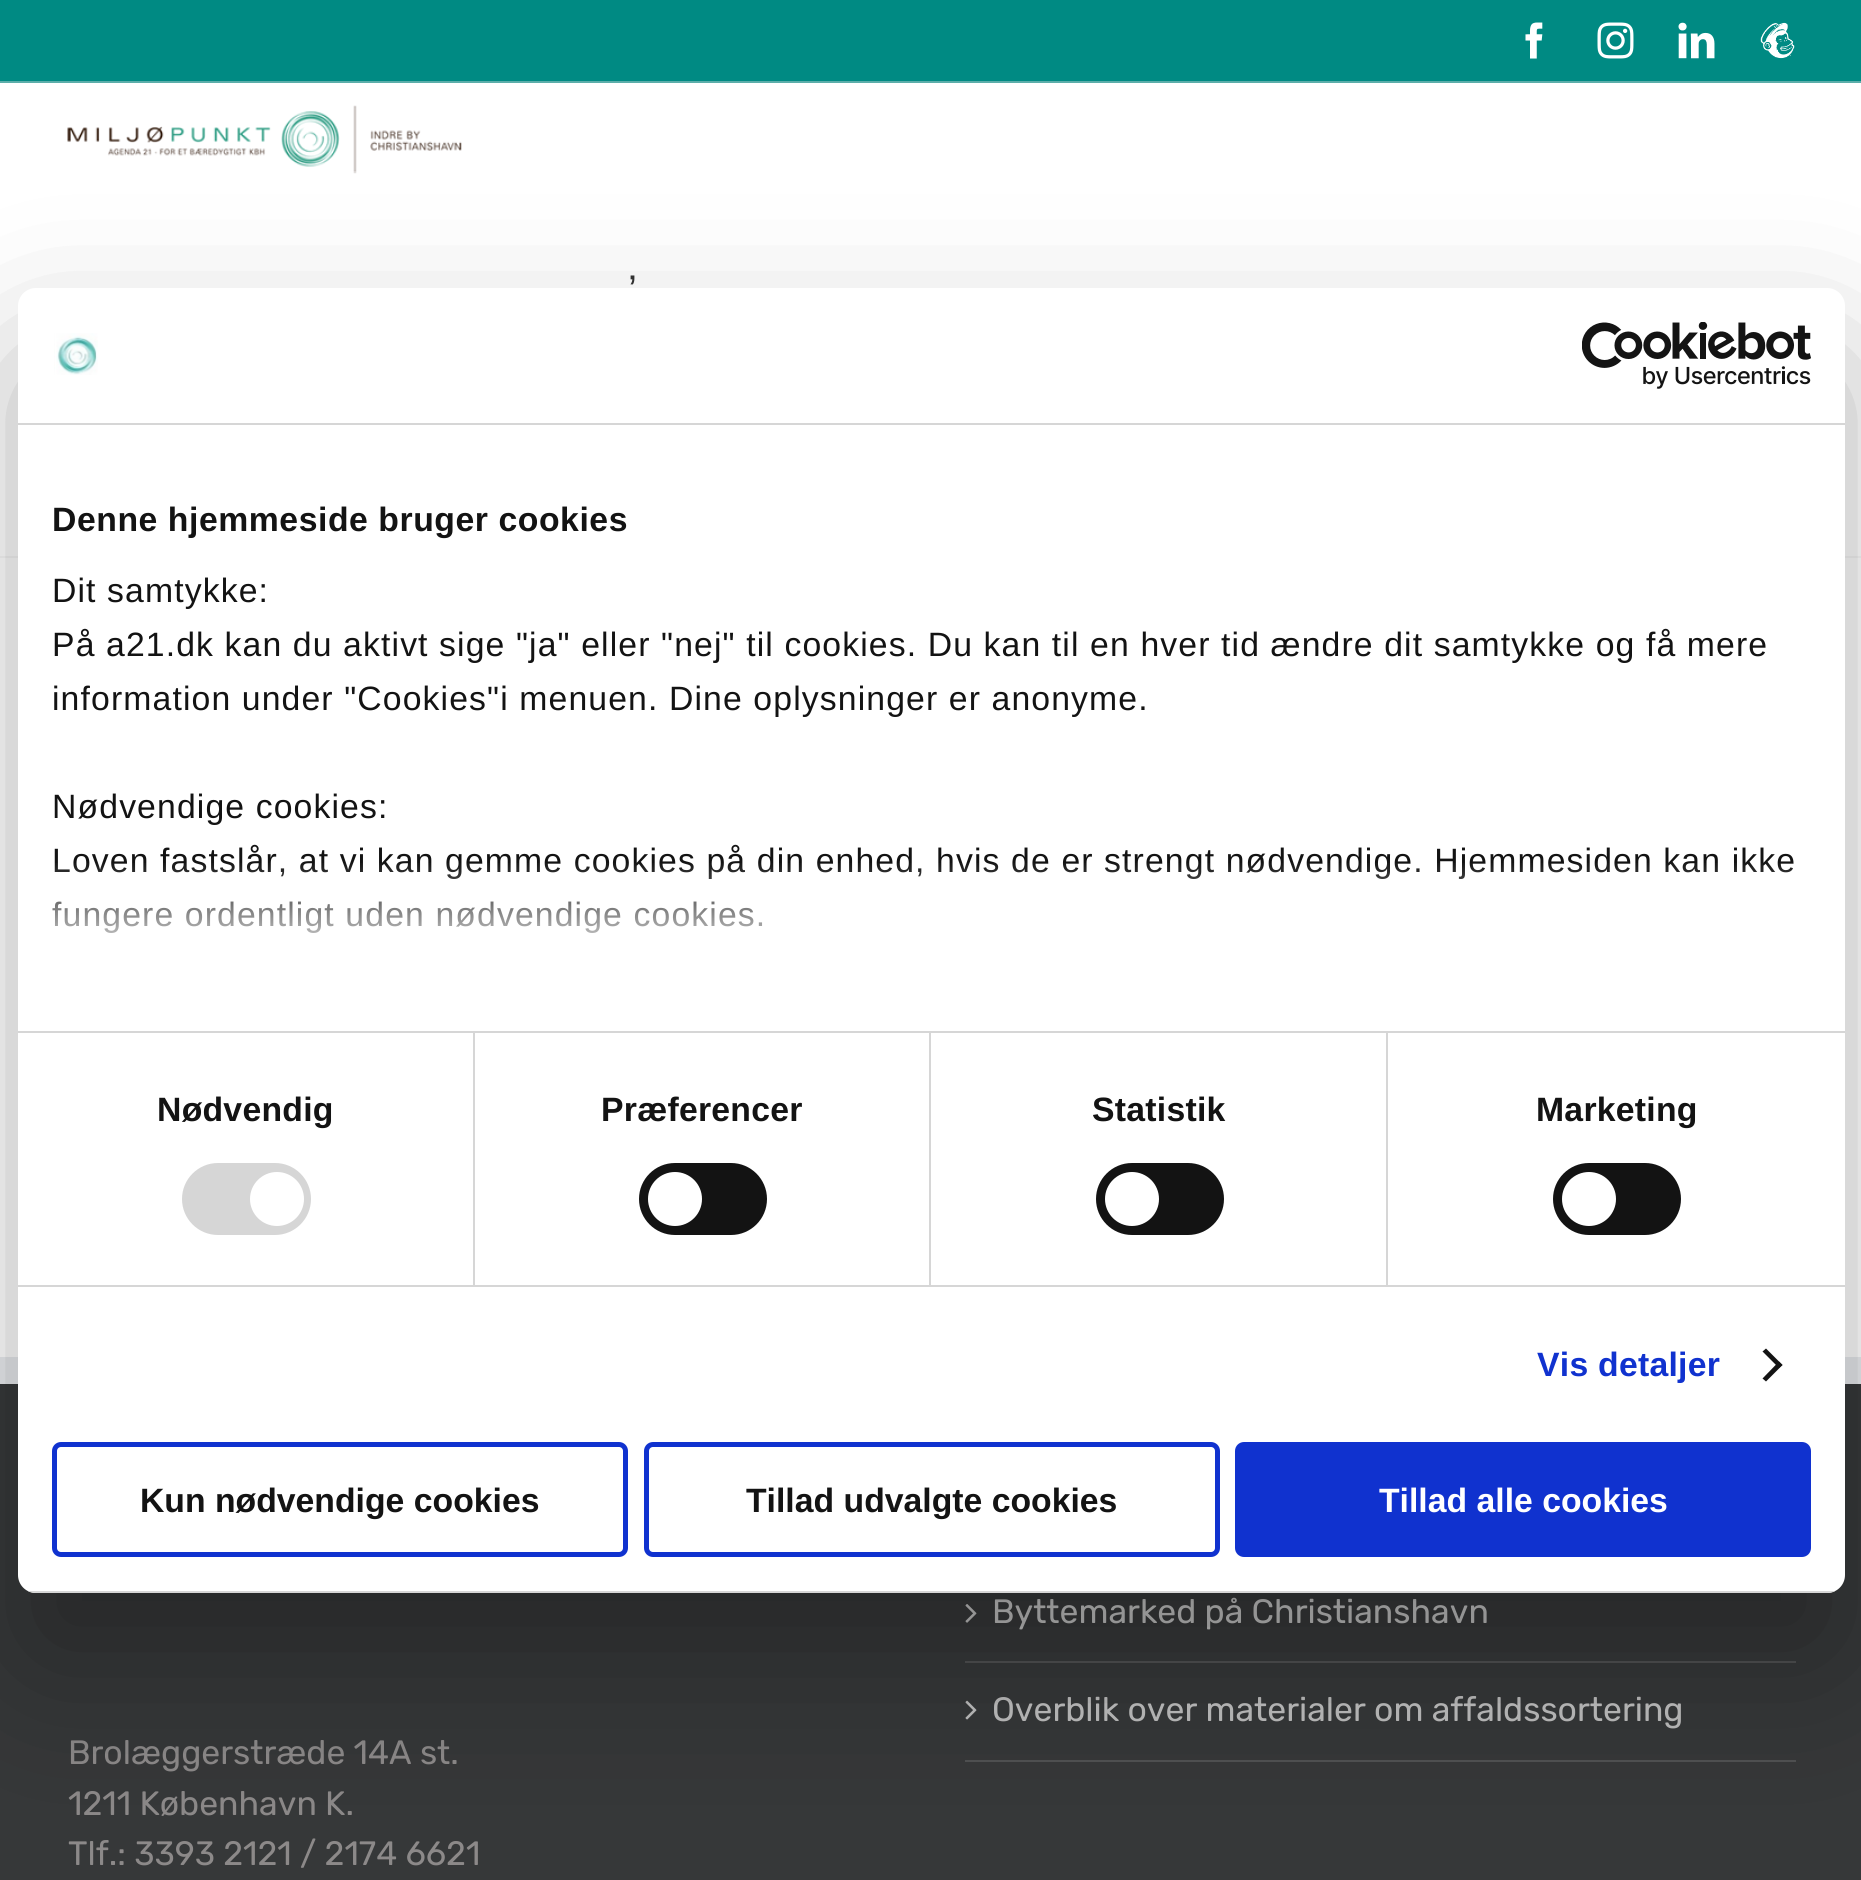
#include <cairo.h>
#include <math.h>
#include <stddef.h>


static void spaced_text(cairo_t *cr, double x, double y, const char *s, double letter, double word) {
    cairo_move_to(cr, x, y);
    while (*s) {
        char ch[5] = {0};
        int n = 0;
        do ch[n++] = *s++; while ((*s & 0xC0) == 0x80);
        cairo_show_text(cr, ch);
        cairo_rel_move_to(cr, letter + word * (*ch == ' '), 0);
    }
}

static void round_rect(cairo_t *cr, double x, double y, double w, double h, double r) {
    cairo_new_sub_path(cr);
    cairo_arc(cr, x + w - r, y + h - r, r, 0, M_PI / 2);
    cairo_arc(cr, x + r, y + h - r, r, M_PI / 2, M_PI);
    cairo_arc(cr, x + r, y + r, r, M_PI, 1.5 * M_PI);
    cairo_arc(cr, x + w - r, y + r, r, 1.5 * M_PI, 2 * M_PI);
    cairo_close_path(cr);
}

static void shadow(cairo_t *cr, double x, double y, double w, double h, double r, double blur, double alpha) {
    cairo_push_group_with_content(cr, CAIRO_CONTENT_ALPHA);
    cairo_set_operator(cr, CAIRO_OPERATOR_SOURCE);
    for (int i = 15; i >= -15 && fmin(w, h) + blur * i / 3 > 0; i -= 2) {
        double e = blur * i / 6;
        cairo_set_source_rgba(cr, 0, 0, 0, alpha * erfc((i - 1) / 8.5) / 2);
        round_rect(cr, x - e, y - e, w + 2 * e, h + 2 * e, fmax(0, fmin(r + e + blur * .6, fmin(w, h) / 2 + e)));
        cairo_fill(cr);
    }
    cairo_pattern_t *soft = cairo_pop_group(cr);
    cairo_mask(cr, soft);
    cairo_pattern_destroy(soft);
}

static void picture(cairo_t *cr, const char *path, double x, double y, double w, double h) {
    cairo_surface_t *image = cairo_image_surface_create_from_png(path);
    cairo_save(cr);
    cairo_set_source_surface(cr, image, x, y);
    cairo_rectangle(cr, x, y, w, h);
    cairo_fill(cr);
    cairo_restore(cr);
    cairo_surface_destroy(image);
}

int main(void) {
    cairo_surface_t *surface = cairo_image_surface_create(CAIRO_FORMAT_RGB24, 1861, 1880);
    cairo_t *cr = cairo_create(surface);
    cairo_font_options_t *options = cairo_font_options_create();
    cairo_font_options_set_hint_metrics(options, CAIRO_HINT_METRICS_OFF);
    cairo_font_options_set_hint_style(options, CAIRO_HINT_STYLE_NONE);
    cairo_set_font_options(cr, options);
    cairo_set_miter_limit(cr, 4);
    cairo_pattern_t *gradient;
    cairo_set_source_rgb(cr, 1, 1, 1);
    cairo_paint(cr);
    cairo_set_source_rgb(cr, 0, 0.541, 0.514);
    cairo_rectangle(cr, 0, 0, 1861, 81);
    cairo_fill(cr);
    cairo_set_source_rgb(cr, 0.361, 0.682, 0.667);
    cairo_rectangle(cr, 0, 81, 1861, 2);
    cairo_fill(cr);
    picture(cr, "img1.png", 1525, 22, 18, 37);
    picture(cr, "img2.png", 1597, 22, 37, 37);
    picture(cr, "img3.png", 1678, 22, 37, 37);
    picture(cr, "img4.png", 1760, 22, 35, 37);
    cairo_set_source_rgb(cr, 0.961, 0.961, 0.961);
    cairo_rectangle(cr, 0, 556, 1861, 2);
    cairo_fill(cr);
    picture(cr, "img5.png", 67, 105, 395, 69);
    cairo_select_font_face(cr, "Arimo", CAIRO_FONT_SLANT_NORMAL, CAIRO_FONT_WEIGHT_NORMAL);
    cairo_set_font_size(cr, 40);
    cairo_set_source_rgb(cr, 0.2, 0.2, 0.2);
    cairo_move_to(cr, 628, 303);
    cairo_show_text(cr, "’");
    cairo_set_source_rgb(cr, 0.212, 0.22, 0.224);
    cairo_rectangle(cr, 0, 1384, 1861, 496);
    cairo_fill(cr);
    cairo_set_source_rgb(cr, 0.914, 0.918, 0.933);
    cairo_rectangle(cr, 0, 1357, 1861, 27);
    cairo_fill(cr);
    cairo_set_source_rgb(cr, 0.314, 0.318, 0.322);
    cairo_rectangle(cr, 965, 1661, 831, 2);
    cairo_fill(cr);
    picture(cr, "img6.png", 965, 1604, 12, 19);
    cairo_select_font_face(cr, "Rubik", CAIRO_FONT_SLANT_NORMAL, CAIRO_FONT_WEIGHT_NORMAL);
    cairo_set_font_size(cr, 33.75);
    cairo_set_source_rgb(cr, 0.749, 0.749, 0.749);
    cairo_move_to(cr, 992, 1623);
    cairo_show_text(cr, "Byttemarked på Christianshavn");
    cairo_set_source_rgb(cr, 0.314, 0.318, 0.322);
    cairo_rectangle(cr, 965, 1760, 831, 2);
    cairo_fill(cr);
    picture(cr, "img7.png", 965, 1700, 12, 20);
    cairo_set_source_rgb(cr, 0.749, 0.749, 0.749);
    cairo_move_to(cr, 992, 1721);
    cairo_show_text(cr, "Overblik over materialer om affaldssortering");
    cairo_set_source_rgb(cr, 0.549, 0.537, 0.537);
    cairo_move_to(cr, 68, 1764);
    cairo_show_text(cr, "Brolæggerstræde 14A st.");
    cairo_move_to(cr, 68, 1815);
    cairo_show_text(cr, "1211 København K.");
    cairo_move_to(cr, 68, 1865);
    cairo_show_text(cr, "Tlf.: 3393 2121 / 2174 6621");
    cairo_set_source_rgb(cr, 0, 0, 0);
    shadow(cr, 18, 360, 1827, 1305, 18, 76.5, 0.3);
    cairo_set_source_rgb(cr, 1, 1, 1);
    round_rect(cr, 18, 288, 1827, 1305, 18);
    cairo_fill(cr);
    cairo_set_source_rgb(cr, 0.839, 0.839, 0.839);
    cairo_rectangle(cr, 18, 423, 1827, 2);
    cairo_fill(cr);
    picture(cr, "img8.png", 54, 333, 44, 42);
    picture(cr, "img9.png", 1582, 322, 229, 67);
    cairo_rectangle(cr, 18, 1031, 1827, 2);
    cairo_fill(cr);
    cairo_select_font_face(cr, "Liberation Sans", CAIRO_FONT_SLANT_NORMAL, CAIRO_FONT_WEIGHT_BOLD);
    cairo_set_source_rgb(cr, 0.078, 0.078, 0.078);
    spaced_text(cr, 52, 531, "Denne hjemmeside bruger cookies", 0.55, 0);
    cairo_select_font_face(cr, "Liberation Sans", CAIRO_FONT_SLANT_NORMAL, CAIRO_FONT_WEIGHT_NORMAL);
    spaced_text(cr, 52, 602, "Dit samtykke:", 1.12, 0);
    spaced_text(cr, 52, 656, "På a21.dk kan du aktivt sige \"ja\" eller \"nej\" til cookies. Du kan til en hver tid ændre dit samtykke og få mere", 1.12, 0);
    spaced_text(cr, 52, 710, "information under \"Cookies\"i menuen. Dine oplysninger er anonyme.", 1.12, 0);
    spaced_text(cr, 52, 818, "Nødvendige cookies:", 1.12, 0);
    spaced_text(cr, 52, 872, "Loven fastslår, at vi kan gemme cookies på din enhed, hvis de er strengt nødvendige. Hjemmesiden kan ikke", 1.12, 0);
    spaced_text(cr, 52, 926, "fungere ordentligt uden nødvendige cookies.", 1.12, 0);
    gradient = cairo_pattern_create_linear(917, 1030, 917, 861);
    cairo_pattern_add_color_stop_rgba(gradient, 0, 1, 1, 1, 1);
    cairo_pattern_add_color_stop_rgba(gradient, 0.5, 1, 1, 1, 0.8);
    cairo_pattern_add_color_stop_rgba(gradient, 1, 1, 1, 1, 0);
    cairo_set_source(cr, gradient);
    cairo_pattern_destroy(gradient);
    cairo_rectangle(cr, 52, 863, 1742, 70);
    cairo_fill(cr);
    cairo_set_source_rgb(cr, 0.839, 0.839, 0.839);
    cairo_rectangle(cr, 18, 1285, 1827, 2);
    cairo_fill(cr);
    cairo_rectangle(cr, 473, 1033, 2, 252);
    cairo_fill(cr);
    cairo_select_font_face(cr, "Liberation Sans", CAIRO_FONT_SLANT_NORMAL, CAIRO_FONT_WEIGHT_BOLD);
    cairo_set_source_rgb(cr, 0.078, 0.078, 0.078);
    spaced_text(cr, 157, 1121, "Nødvendig", 0.25, 0);
    cairo_set_source_rgb(cr, 0.839, 0.839, 0.839);
    round_rect(cr, 182, 1163, 129, 72, 36);
    cairo_fill(cr);
    cairo_set_source_rgb(cr, 1, 1, 1);
    cairo_arc(cr, 277, 1199, 27, 0, 2 * M_PI);
    cairo_fill(cr);
    cairo_set_source_rgb(cr, 0.839, 0.839, 0.839);
    cairo_rectangle(cr, 929, 1033, 2, 252);
    cairo_fill(cr);
    cairo_set_source_rgb(cr, 0.078, 0.078, 0.078);
    spaced_text(cr, 601, 1121, "Præferencer", 0.25, 0);
    round_rect(cr, 639, 1163, 128, 72, 36);
    cairo_fill(cr);
    cairo_set_source_rgb(cr, 1, 1, 1);
    cairo_arc(cr, 675, 1199, 27, 0, 2 * M_PI);
    cairo_fill(cr);
    cairo_set_source_rgb(cr, 0.839, 0.839, 0.839);
    cairo_rectangle(cr, 1386, 1033, 2, 252);
    cairo_fill(cr);
    cairo_set_source_rgb(cr, 0.078, 0.078, 0.078);
    spaced_text(cr, 1092, 1121, "Statistik", 0.25, 0);
    round_rect(cr, 1096, 1163, 128, 72, 36);
    cairo_fill(cr);
    cairo_set_source_rgb(cr, 1, 1, 1);
    cairo_arc(cr, 1132, 1199, 27, 0, 2 * M_PI);
    cairo_fill(cr);
    cairo_set_source_rgb(cr, 0.078, 0.078, 0.078);
    spaced_text(cr, 1536, 1121, "Marketing", 0.25, 0);
    round_rect(cr, 1553, 1163, 128, 72, 36);
    cairo_fill(cr);
    cairo_set_source_rgb(cr, 1, 1, 1);
    cairo_arc(cr, 1589, 1199, 27, 0, 2 * M_PI);
    cairo_fill(cr);
    cairo_set_source_rgb(cr, 0.063, 0.196, 0.812);
    spaced_text(cr, 1537, 1376, "Vis detaljer", 0.25, 0);
    cairo_set_source_rgb(cr, 0.078, 0.078, 0.078);
    cairo_new_path(cr);
    cairo_move_to(cr, 1766, 1348.5);
    cairo_line_to(cr, 1782.5, 1365);
    cairo_line_to(cr, 1779, 1368);
    cairo_line_to(cr, 1762.5, 1351.5);
    cairo_close_path(cr);
    cairo_fill(cr);
    cairo_new_path(cr);
    cairo_move_to(cr, 1779, 1361.5);
    cairo_line_to(cr, 1782.5, 1365);
    cairo_line_to(cr, 1766, 1381.5);
    cairo_line_to(cr, 1762.5, 1378.5);
    cairo_close_path(cr);
    cairo_fill(cr);
    cairo_save(cr);
    round_rect(cr, 18, 288, 1827, 1305, 18);
    cairo_clip(cr);
    cairo_set_source_rgb(cr, 0.839, 0.839, 0.839);
    cairo_rectangle(cr, 28, 1591, 1807, 2);
    cairo_fill(cr);
    cairo_restore(cr);
    round_rect(cr, 54.5, 1444.5, 571, 110, 6.5);
    cairo_set_source_rgb(cr, 0.063, 0.196, 0.812);
    cairo_set_line_width(cr, 5);
    cairo_stroke(cr);
    cairo_set_source_rgb(cr, 0.078, 0.078, 0.078);
    cairo_move_to(cr, 140, 1512);
    cairo_show_text(cr, "Kun nødvendige cookies");
    round_rect(cr, 646.5, 1444.5, 571, 110, 6.5);
    cairo_set_source_rgb(cr, 0.063, 0.196, 0.812);
    cairo_stroke(cr);
    cairo_set_source_rgb(cr, 0.078, 0.078, 0.078);
    cairo_move_to(cr, 746, 1512);
    cairo_show_text(cr, "Tillad udvalgte cookies");
    cairo_set_source_rgb(cr, 0.063, 0.196, 0.812);
    round_rect(cr, 1237.5, 1444.5, 571, 110, 6.5);
    cairo_fill_preserve(cr);
    cairo_stroke(cr);
    cairo_set_source_rgb(cr, 1, 1, 1);
    cairo_move_to(cr, 1379, 1512);
    cairo_show_text(cr, "Tillad alle cookies");
    cairo_surface_write_to_png(surface, "page.png");
    cairo_font_options_destroy(options);
    cairo_destroy(cr);
    cairo_surface_destroy(surface);
    return 0;
}
